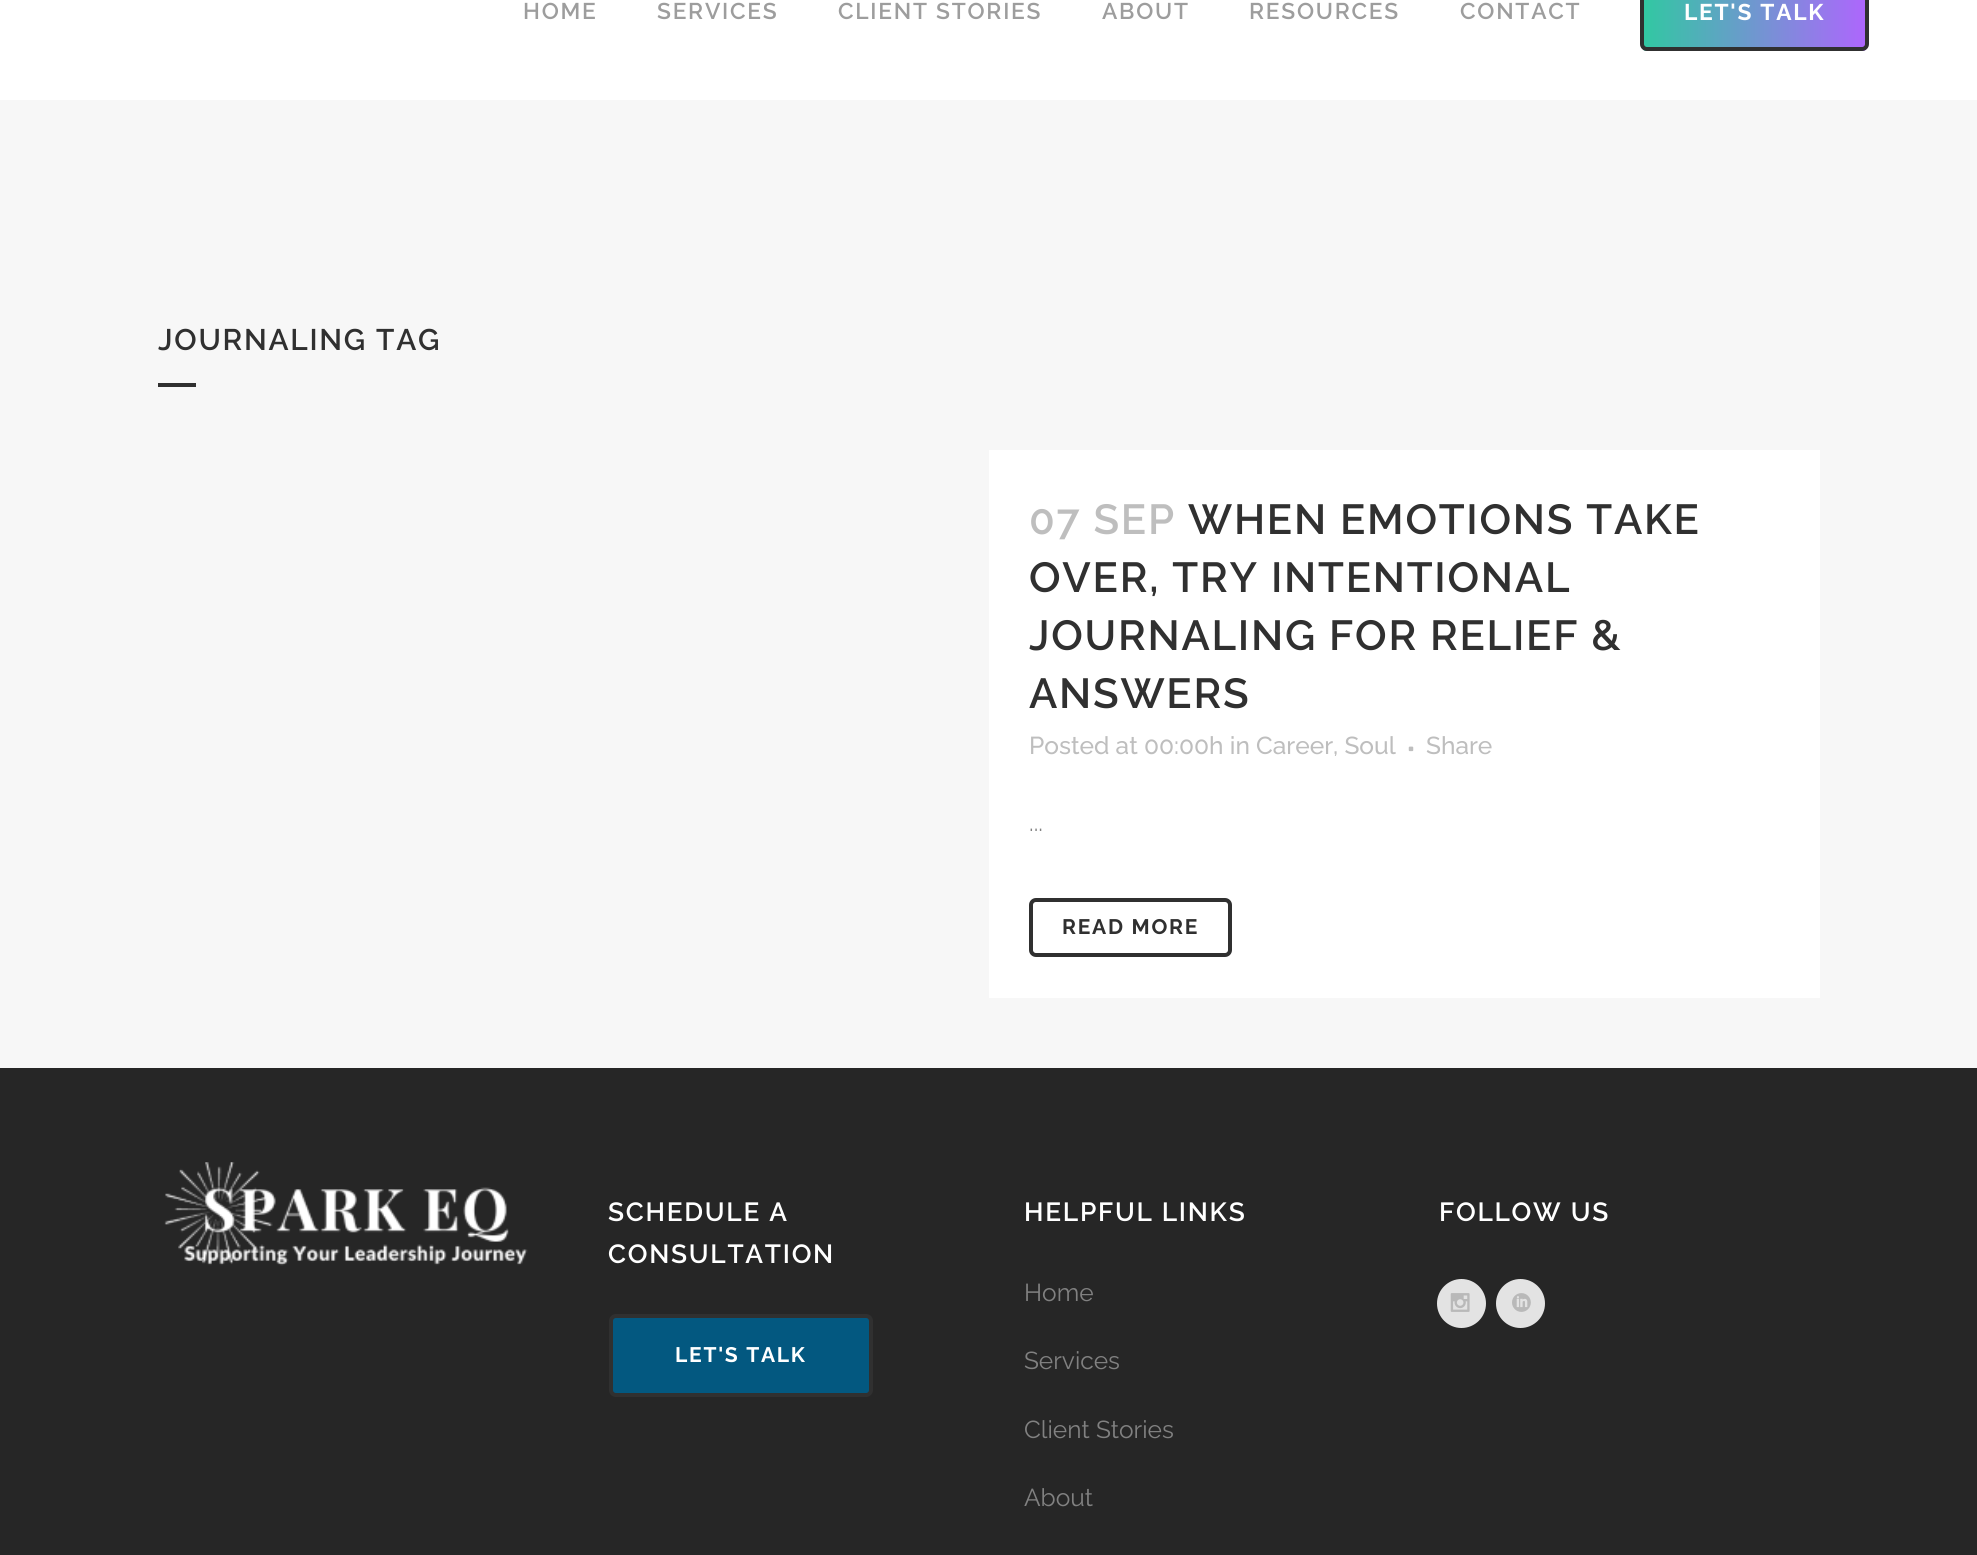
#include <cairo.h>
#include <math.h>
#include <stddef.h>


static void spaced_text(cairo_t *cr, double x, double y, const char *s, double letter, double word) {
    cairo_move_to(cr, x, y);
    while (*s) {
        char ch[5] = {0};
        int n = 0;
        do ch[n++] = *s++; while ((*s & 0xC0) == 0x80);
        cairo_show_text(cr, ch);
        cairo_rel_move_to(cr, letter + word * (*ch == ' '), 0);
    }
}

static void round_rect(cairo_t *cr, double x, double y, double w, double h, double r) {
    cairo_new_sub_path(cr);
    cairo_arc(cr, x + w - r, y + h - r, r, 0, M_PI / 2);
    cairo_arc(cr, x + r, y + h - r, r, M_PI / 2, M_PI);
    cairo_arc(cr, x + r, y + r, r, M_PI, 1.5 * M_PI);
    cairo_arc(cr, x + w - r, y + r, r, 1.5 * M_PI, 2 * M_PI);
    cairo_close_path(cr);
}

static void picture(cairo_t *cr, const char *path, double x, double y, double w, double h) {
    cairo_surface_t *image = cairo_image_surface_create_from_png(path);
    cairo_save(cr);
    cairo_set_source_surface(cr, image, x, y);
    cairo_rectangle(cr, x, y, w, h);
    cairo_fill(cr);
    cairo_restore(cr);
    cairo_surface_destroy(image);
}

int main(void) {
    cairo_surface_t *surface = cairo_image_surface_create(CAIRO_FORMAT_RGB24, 1977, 1555);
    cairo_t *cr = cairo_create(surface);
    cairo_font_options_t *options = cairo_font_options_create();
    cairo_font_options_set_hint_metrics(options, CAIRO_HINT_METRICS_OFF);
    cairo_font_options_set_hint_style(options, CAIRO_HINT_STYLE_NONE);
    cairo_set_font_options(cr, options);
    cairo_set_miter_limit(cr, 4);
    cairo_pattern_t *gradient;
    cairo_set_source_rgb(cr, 0.965, 0.965, 0.965);
    cairo_paint(cr);
    cairo_set_source_rgb(cr, 1, 1, 1);
    cairo_rectangle(cr, 0, 0, 1977, 100);
    cairo_fill(cr);
    cairo_select_font_face(cr, "Raleway SemiBold", CAIRO_FONT_SLANT_NORMAL, CAIRO_FONT_WEIGHT_NORMAL);
    cairo_set_font_size(cr, 22.75);
    cairo_set_source_rgb(cr, 0.616, 0.616, 0.616);
    spaced_text(cr, 523, 19, "HOME", 1.75, 0);
    spaced_text(cr, 657, 19, "SERVICES", 1.75, 0);
    spaced_text(cr, 838, 19, "CLIENT STORIES", 1.75, 0);
    spaced_text(cr, 1102, 19, "ABOUT", 1.75, 0);
    spaced_text(cr, 1249, 19, "RESOURCES", 1.75, 0);
    spaced_text(cr, 1460, 19, "CONTACT", 1.75, 0);
    cairo_save(cr);
    round_rect(cr, 1640, -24, 229, 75, 7);
    cairo_clip(cr);
    gradient = cairo_pattern_create_linear(1643, 13, 1866, 13);
    cairo_pattern_add_color_stop_rgba(gradient, 0, 0.192, 0.784, 0.635, 1);
    cairo_pattern_add_color_stop_rgba(gradient, 1, 0.682, 0.4, 0.992, 1);
    cairo_set_source(cr, gradient);
    cairo_pattern_destroy(gradient);
    cairo_rectangle(cr, 1643, 0, 223, 51);
    cairo_fill(cr);
    cairo_restore(cr);
    round_rect(cr, 1642, -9, 225, 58, 5);
    cairo_set_source_rgb(cr, 0.188, 0.188, 0.188);
    cairo_set_line_width(cr, 4);
    cairo_stroke(cr);
    cairo_select_font_face(cr, "Raleway", CAIRO_FONT_SLANT_NORMAL, CAIRO_FONT_WEIGHT_BOLD);
    cairo_set_source_rgb(cr, 1, 1, 1);
    spaced_text(cr, 1684, 20, "LET'S TALK", 1.75, 0);
    cairo_select_font_face(cr, "Raleway SemiBold", CAIRO_FONT_SLANT_NORMAL, CAIRO_FONT_WEIGHT_NORMAL);
    cairo_set_font_size(cr, 29.75);
    cairo_set_source_rgb(cr, 0.188, 0.188, 0.188);
    spaced_text(cr, 158, 350, "JOURNALING TAG", 1.75, 0);
    cairo_rectangle(cr, 158, 383, 38, 4);
    cairo_fill(cr);
    cairo_set_source_rgb(cr, 1, 1, 1);
    cairo_rectangle(cr, 989, 450, 831, 548);
    cairo_fill(cr);
    cairo_set_font_size(cr, 42);
    cairo_set_source_rgb(cr, 0.745, 0.745, 0.745);
    spaced_text(cr, 1029, 534, "07 SEP", 1.75, 0);
    cairo_set_source_rgb(cr, 0.188, 0.188, 0.188);
    spaced_text(cr, 1188, 534, "WHEN EMOTIONS TAKE", 1.75, 0);
    spaced_text(cr, 1029, 592, "OVER, TRY INTENTIONAL", 1.75, 0);
    spaced_text(cr, 1029, 650, "JOURNALING FOR RELIEF &", 1.75, 0);
    spaced_text(cr, 1029, 708, "ANSWERS", 1.75, 0);
    cairo_select_font_face(cr, "Raleway Medium", CAIRO_FONT_SLANT_NORMAL, CAIRO_FONT_WEIGHT_NORMAL);
    cairo_set_font_size(cr, 24.5);
    cairo_set_source_rgb(cr, 0.745, 0.745, 0.745);
    cairo_move_to(cr, 1029, 754);
    cairo_show_text(cr, "Posted at 00:00h in Career, Soul");
    picture(cr, "img1.png", 1408, 746, 6, 6);
    cairo_move_to(cr, 1426, 754);
    cairo_show_text(cr, "Share");
    cairo_select_font_face(cr, "Raleway", CAIRO_FONT_SLANT_NORMAL, CAIRO_FONT_WEIGHT_NORMAL);
    cairo_set_source_rgb(cr, 0.506, 0.506, 0.506);
    cairo_move_to(cr, 1029, 831);
    cairo_show_text(cr, "...");
    round_rect(cr, 1031, 900, 199, 55, 5);
    cairo_set_source_rgb(cr, 0.188, 0.188, 0.188);
    cairo_stroke(cr);
    cairo_select_font_face(cr, "Raleway", CAIRO_FONT_SLANT_NORMAL, CAIRO_FONT_WEIGHT_BOLD);
    cairo_set_font_size(cr, 21);
    spaced_text(cr, 1062, 934, "READ MORE", 1.75, 0);
    cairo_set_source_rgb(cr, 0.149, 0.149, 0.149);
    cairo_rectangle(cr, 0, 1068, 1977, 487);
    cairo_fill(cr);
    picture(cr, "img2.png", 164, 1162, 364, 104);
    cairo_select_font_face(cr, "Raleway SemiBold", CAIRO_FONT_SLANT_NORMAL, CAIRO_FONT_WEIGHT_NORMAL);
    cairo_set_font_size(cr, 26.25);
    cairo_set_source_rgb(cr, 1, 1, 1);
    spaced_text(cr, 608, 1221, "SCHEDULE A", 1.75, 0);
    spaced_text(cr, 608, 1263, "CONSULTATION", 1.75, 0);
    cairo_set_source_rgb(cr, 0.012, 0.345, 0.502);
    round_rect(cr, 611, 1316, 260, 79, 5);
    cairo_fill_preserve(cr);
    cairo_set_source_rgb(cr, 0.188, 0.188, 0.188);
    cairo_stroke(cr);
    cairo_select_font_face(cr, "Raleway", CAIRO_FONT_SLANT_NORMAL, CAIRO_FONT_WEIGHT_BOLD);
    cairo_set_font_size(cr, 21);
    cairo_set_source_rgb(cr, 1, 1, 1);
    spaced_text(cr, 675, 1362, "LET'S TALK", 1.75, 0);
    cairo_select_font_face(cr, "Raleway SemiBold", CAIRO_FONT_SLANT_NORMAL, CAIRO_FONT_WEIGHT_NORMAL);
    cairo_set_font_size(cr, 26.25);
    spaced_text(cr, 1024, 1221, "HELPFUL LINKS", 1.75, 0);
    cairo_select_font_face(cr, "Raleway", CAIRO_FONT_SLANT_NORMAL, CAIRO_FONT_WEIGHT_NORMAL);
    cairo_set_font_size(cr, 24.5);
    cairo_set_source_rgb(cr, 0.506, 0.506, 0.506);
    cairo_move_to(cr, 1024, 1301);
    cairo_show_text(cr, "Home");
    cairo_move_to(cr, 1024, 1369);
    cairo_show_text(cr, "Services");
    cairo_move_to(cr, 1024, 1438);
    cairo_show_text(cr, "Client Stories");
    cairo_move_to(cr, 1024, 1506);
    cairo_show_text(cr, "About");
    cairo_select_font_face(cr, "Raleway SemiBold", CAIRO_FONT_SLANT_NORMAL, CAIRO_FONT_WEIGHT_NORMAL);
    cairo_set_font_size(cr, 26.25);
    cairo_set_source_rgb(cr, 1, 1, 1);
    spaced_text(cr, 1439, 1221, "FOLLOW US", 1.75, 0);
    cairo_set_source_rgb(cr, 0.89, 0.89, 0.89);
    cairo_new_path(cr);
    cairo_arc(cr, 1461.5, 1303.5, 24.5, 0, 2 * M_PI);
    cairo_fill(cr);
    picture(cr, "img3.png", 1450, 1293, 20, 19);
    cairo_arc(cr, 1520.5, 1303.5, 24.5, 0, 2 * M_PI);
    cairo_fill(cr);
    picture(cr, "img4.png", 1512, 1293, 19, 19);
    cairo_surface_write_to_png(surface, "page.png");
    cairo_font_options_destroy(options);
    cairo_destroy(cr);
    cairo_surface_destroy(surface);
    return 0;
}
